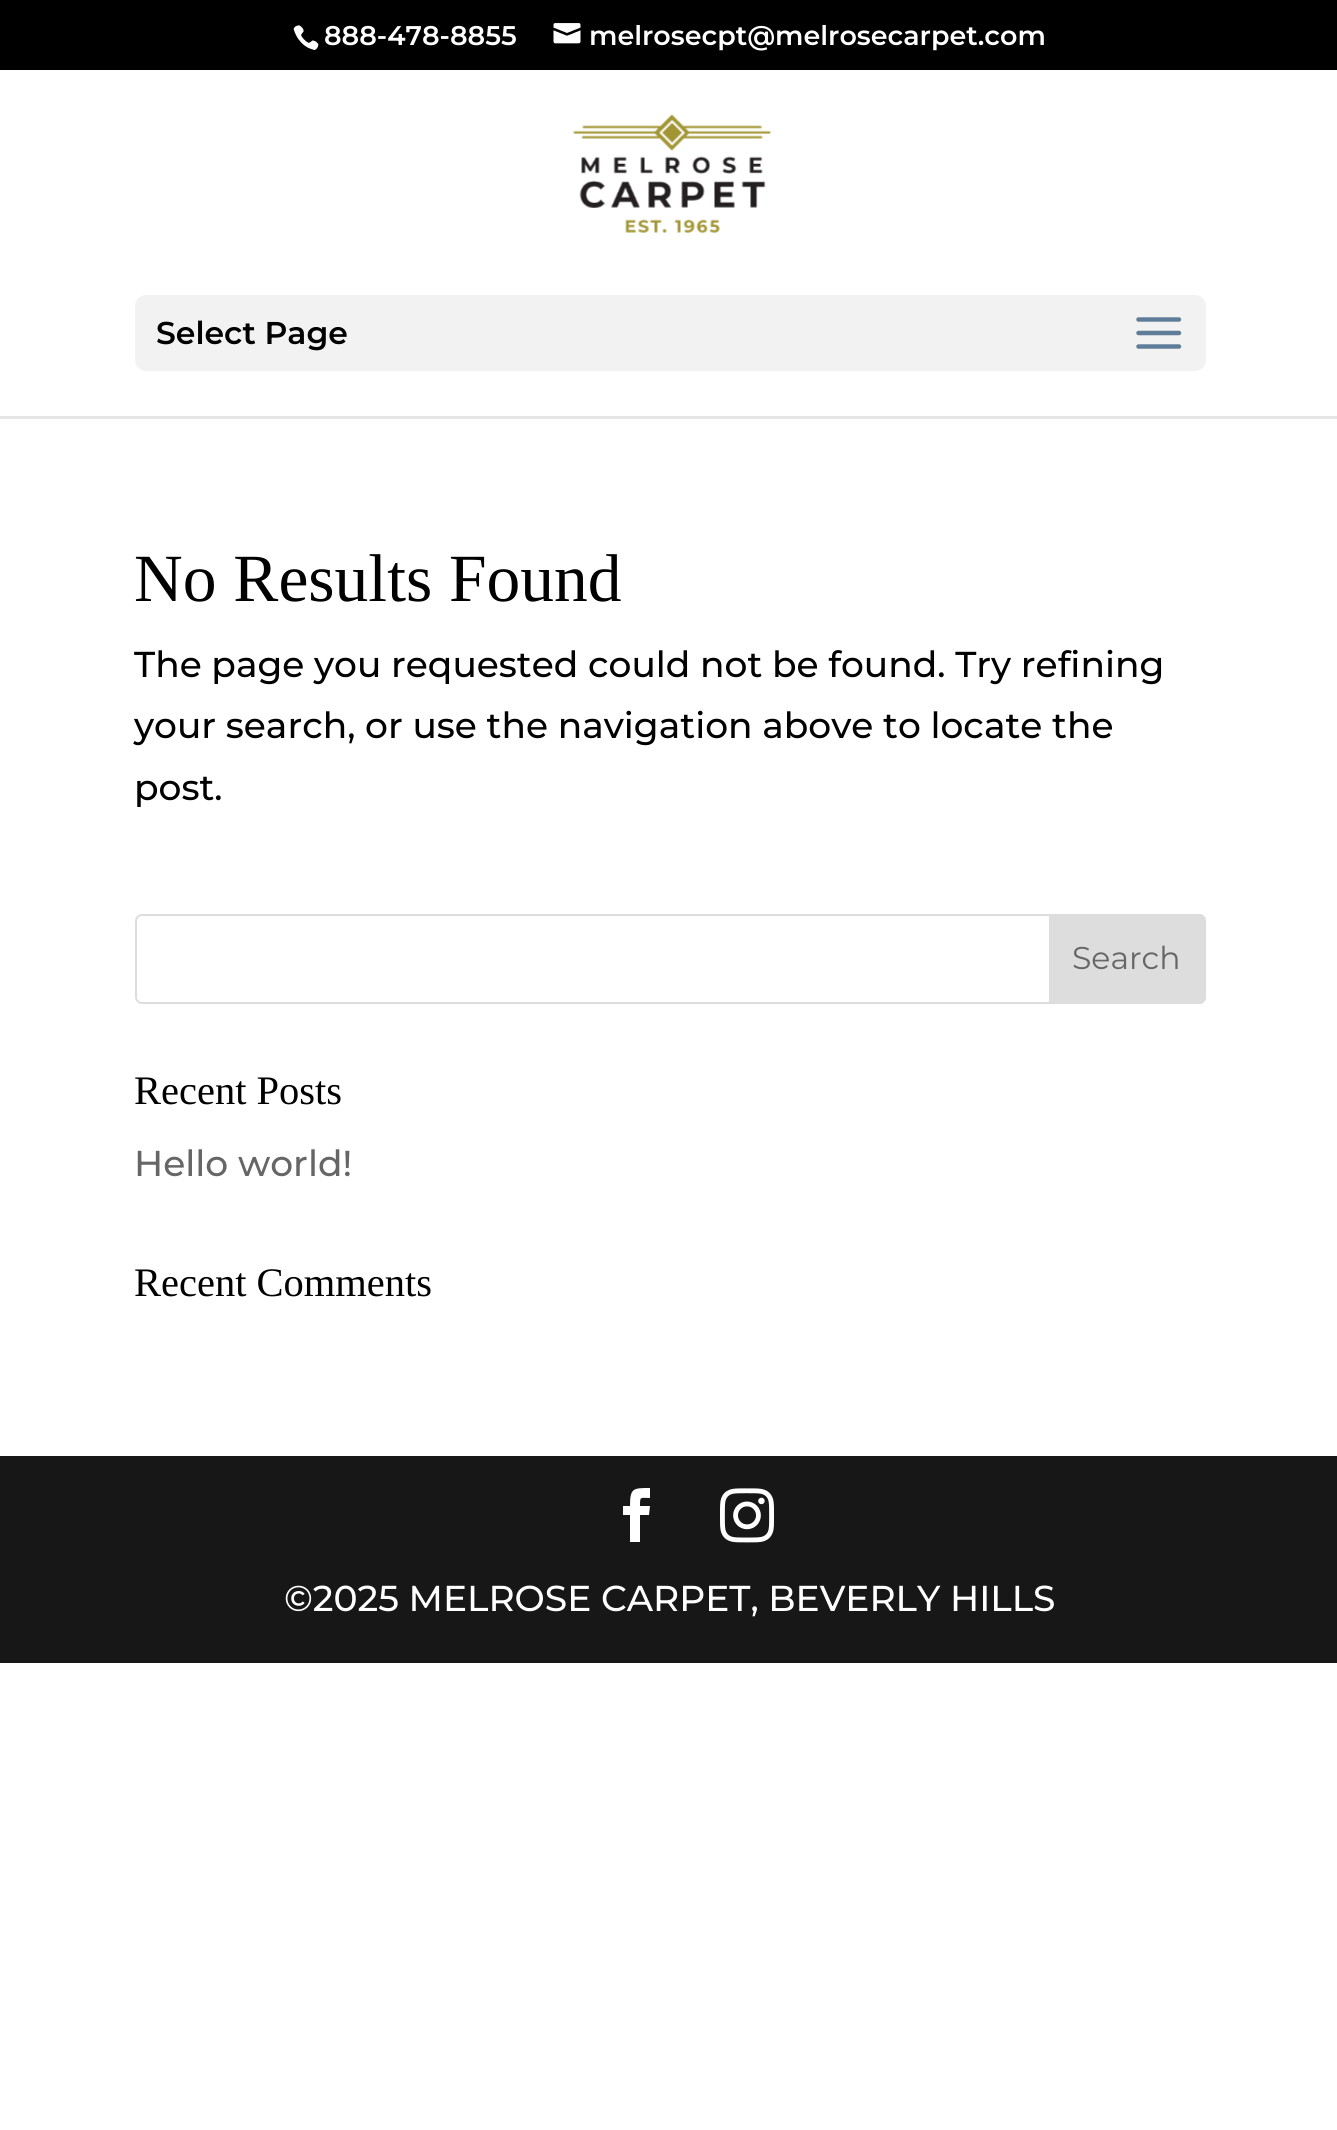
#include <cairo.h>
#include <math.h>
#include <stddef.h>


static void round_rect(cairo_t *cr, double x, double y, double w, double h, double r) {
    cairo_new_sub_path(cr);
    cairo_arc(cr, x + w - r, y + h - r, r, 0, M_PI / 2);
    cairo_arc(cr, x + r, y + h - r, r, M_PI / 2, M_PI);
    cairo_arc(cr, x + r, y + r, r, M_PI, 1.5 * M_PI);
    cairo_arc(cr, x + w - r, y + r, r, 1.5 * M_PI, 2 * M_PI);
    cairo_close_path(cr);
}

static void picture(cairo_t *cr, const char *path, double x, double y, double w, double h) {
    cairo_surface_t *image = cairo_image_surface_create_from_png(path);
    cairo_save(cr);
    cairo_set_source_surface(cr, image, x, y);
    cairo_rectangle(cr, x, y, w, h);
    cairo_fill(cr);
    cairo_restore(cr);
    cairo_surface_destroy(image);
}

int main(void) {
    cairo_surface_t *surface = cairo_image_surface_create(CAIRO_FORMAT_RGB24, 1337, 2130);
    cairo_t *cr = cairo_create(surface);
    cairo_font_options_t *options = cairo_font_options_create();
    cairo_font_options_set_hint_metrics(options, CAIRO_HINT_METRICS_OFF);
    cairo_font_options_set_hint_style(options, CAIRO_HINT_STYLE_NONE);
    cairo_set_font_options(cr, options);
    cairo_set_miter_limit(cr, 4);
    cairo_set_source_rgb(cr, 1, 1, 1);
    cairo_paint(cr);
    cairo_set_source_rgb(cr, 0, 0, 0);
    cairo_rectangle(cr, 0, 0, 1337, 70);
    cairo_fill(cr);
    picture(cr, "img1.png", 293, 25, 26, 26);
    cairo_select_font_face(cr, "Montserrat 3 Thin", CAIRO_FONT_SLANT_NORMAL, CAIRO_FONT_WEIGHT_NORMAL);
    cairo_set_font_size(cr, 27);
    cairo_set_source_rgb(cr, 1, 1, 1);
    cairo_move_to(cr, 324, 45);
    cairo_show_text(cr, "888-478-8855");
    picture(cr, "img2.png", 553, 23, 28, 21);
    cairo_move_to(cr, 589, 45);
    cairo_show_text(cr, "melrosecpt@melrosecarpet.com");
    cairo_set_source_rgb(cr, 0.902, 0.902, 0.902);
    cairo_new_path(cr);
    cairo_move_to(cr, 0, 416);
    cairo_line_to(cr, 0, 419);
    cairo_line_to(cr, 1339, 419);
    cairo_line_to(cr, 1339, 72);
    cairo_line_to(cr, 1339, 416);
    cairo_close_path(cr);
    cairo_fill(cr);
    picture(cr, "img3.png", 573, 114, 198, 119);
    cairo_set_source_rgb(cr, 0.949, 0.949, 0.949);
    round_rect(cr, 135, 295, 1071, 76, 11);
    cairo_fill(cr);
    cairo_set_font_size(cr, 31.5);
    cairo_set_source_rgb(cr, 0, 0, 0);
    cairo_move_to(cr, 156, 344);
    cairo_show_text(cr, "Select Page");
    picture(cr, "img4.png", 1136, 317, 46, 32);
    cairo_select_font_face(cr, "Liberation Serif", CAIRO_FONT_SLANT_NORMAL, CAIRO_FONT_WEIGHT_NORMAL);
    cairo_set_font_size(cr, 67.5);
    cairo_move_to(cr, 134, 601);
    cairo_show_text(cr, "No Results Found");
    cairo_select_font_face(cr, "Montserrat Thin", CAIRO_FONT_SLANT_NORMAL, CAIRO_FONT_WEIGHT_NORMAL);
    cairo_set_font_size(cr, 36);
    cairo_move_to(cr, 134, 677);
    cairo_show_text(cr, "The page you requested could not be found. Try refining");
    cairo_move_to(cr, 134, 738);
    cairo_show_text(cr, "your search, or use the navigation above to locate the");
    cairo_move_to(cr, 134, 800);
    cairo_show_text(cr, "post.");
    round_rect(cr, 136, 915, 1069, 88, 6);
    cairo_set_source_rgb(cr, 0.867, 0.867, 0.867);
    cairo_stroke(cr);
    cairo_new_path(cr);
    cairo_move_to(cr, 1050, 915);
    cairo_line_to(cr, 1199, 915);
    cairo_curve_to(cr, 1202.5, 915, 1205, 917.5, 1205, 921);
    cairo_line_to(cr, 1205, 997);
    cairo_curve_to(cr, 1205, 1000.5, 1202.5, 1003, 1199, 1003);
    cairo_line_to(cr, 1050, 1003);
    cairo_close_path(cr);
    cairo_fill_preserve(cr);
    cairo_stroke(cr);
    cairo_select_font_face(cr, "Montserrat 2 Thin", CAIRO_FONT_SLANT_NORMAL, CAIRO_FONT_WEIGHT_NORMAL);
    cairo_set_font_size(cr, 31.5);
    cairo_set_source_rgb(cr, 0.4, 0.4, 0.4);
    cairo_move_to(cr, 1072, 969);
    cairo_show_text(cr, "Search");
    cairo_select_font_face(cr, "Liberation Serif", CAIRO_FONT_SLANT_NORMAL, CAIRO_FONT_WEIGHT_NORMAL);
    cairo_set_font_size(cr, 40.5);
    cairo_set_source_rgb(cr, 0, 0, 0);
    cairo_move_to(cr, 134, 1104);
    cairo_show_text(cr, "Recent Posts");
    cairo_select_font_face(cr, "Montserrat Thin", CAIRO_FONT_SLANT_NORMAL, CAIRO_FONT_WEIGHT_NORMAL);
    cairo_set_font_size(cr, 36);
    cairo_set_source_rgb(cr, 0.4, 0.4, 0.4);
    cairo_move_to(cr, 134, 1176);
    cairo_show_text(cr, "Hello world!");
    cairo_select_font_face(cr, "Liberation Serif", CAIRO_FONT_SLANT_NORMAL, CAIRO_FONT_WEIGHT_NORMAL);
    cairo_set_font_size(cr, 40.5);
    cairo_set_source_rgb(cr, 0, 0, 0);
    cairo_move_to(cr, 134, 1296);
    cairo_show_text(cr, "Recent Comments");
    cairo_set_source_rgb(cr, 0.09, 0.09, 0.09);
    cairo_rectangle(cr, 0, 1456, 1337, 207);
    cairo_fill(cr);
    cairo_set_source_rgb(cr, 1, 1, 1);
    cairo_new_path(cr);
    cairo_move_to(cr, 630, 1542);
    cairo_line_to(cr, 640, 1542);
    cairo_line_to(cr, 640, 1515);
    cairo_line_to(cr, 649, 1515);
    cairo_line_to(cr, 650, 1506);
    cairo_line_to(cr, 640, 1506);
    cairo_curve_to(cr, 640, 1496, 640, 1498, 650, 1498);
    cairo_line_to(cr, 650, 1488);
    cairo_curve_to(cr, 633, 1488, 630, 1488, 630, 1506);
    cairo_line_to(cr, 623, 1506);
    cairo_line_to(cr, 623, 1515);
    cairo_line_to(cr, 630, 1515);
    cairo_close_path(cr);
    cairo_fill(cr);
    picture(cr, "img5.png", 720, 1488, 54, 55);
    cairo_select_font_face(cr, "Montserrat Thin", CAIRO_FONT_SLANT_NORMAL, CAIRO_FONT_WEIGHT_NORMAL);
    cairo_set_font_size(cr, 36);
    cairo_move_to(cr, 284, 1611);
    cairo_show_text(cr, "©2025 MELROSE CARPET, BEVERLY HILLS");
    cairo_surface_write_to_png(surface, "page.png");
    cairo_font_options_destroy(options);
    cairo_destroy(cr);
    cairo_surface_destroy(surface);
    return 0;
}
